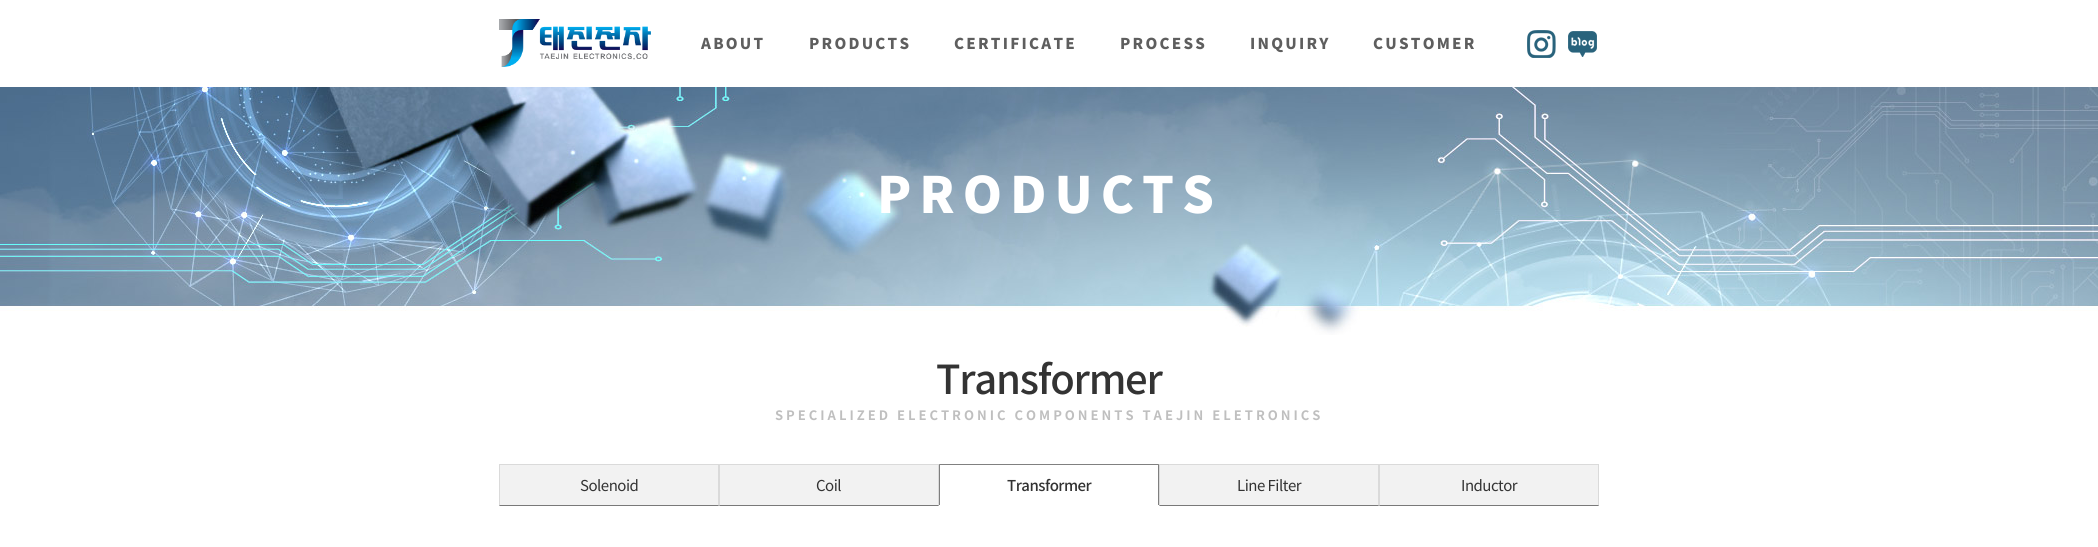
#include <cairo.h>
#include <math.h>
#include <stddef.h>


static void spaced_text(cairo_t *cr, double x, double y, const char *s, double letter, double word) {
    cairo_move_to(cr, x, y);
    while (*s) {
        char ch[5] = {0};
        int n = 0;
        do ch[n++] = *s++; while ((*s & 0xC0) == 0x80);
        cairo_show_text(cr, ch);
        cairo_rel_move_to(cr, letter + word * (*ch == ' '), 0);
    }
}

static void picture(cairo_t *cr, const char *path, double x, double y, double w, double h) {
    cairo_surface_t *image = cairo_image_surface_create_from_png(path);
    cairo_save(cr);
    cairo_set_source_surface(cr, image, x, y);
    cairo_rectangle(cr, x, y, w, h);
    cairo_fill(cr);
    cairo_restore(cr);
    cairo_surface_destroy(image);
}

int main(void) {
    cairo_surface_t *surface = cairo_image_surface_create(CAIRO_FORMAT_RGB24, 2098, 547);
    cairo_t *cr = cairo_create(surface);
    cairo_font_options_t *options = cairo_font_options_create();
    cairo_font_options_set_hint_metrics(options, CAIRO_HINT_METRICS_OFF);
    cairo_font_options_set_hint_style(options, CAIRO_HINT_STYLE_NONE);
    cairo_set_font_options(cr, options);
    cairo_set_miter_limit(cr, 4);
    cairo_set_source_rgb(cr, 1, 1, 1);
    cairo_paint(cr);
    picture(cr, "img1.png", 499, 19, 152, 48);
    cairo_select_font_face(cr, "Noto Sans KR Black", CAIRO_FONT_SLANT_NORMAL, CAIRO_FONT_WEIGHT_NORMAL);
    cairo_set_font_size(cr, 15);
    cairo_set_source_rgb(cr, 0.369, 0.369, 0.369);
    spaced_text(cr, 701, 49, "ABOUT", 2.25, 0);
    spaced_text(cr, 809, 49, "PRODUCTS", 2.25, 0);
    spaced_text(cr, 954, 49, "CERTIFICATE", 2.25, 0);
    spaced_text(cr, 1120, 49, "PROCESS", 2.25, 0);
    spaced_text(cr, 1250, 49, "INQUIRY", 2.25, 0);
    spaced_text(cr, 1373, 49, "CUSTOMER", 2.25, 0);
    picture(cr, "img2.png", 1527, 30, 29, 28);
    picture(cr, "img3.png", 1568, 31, 29, 26);
    picture(cr, "img4.png", 0, 87, 2098, 248);
    cairo_set_font_size(cr, 50);
    cairo_set_source_rgb(cr, 1, 1, 1);
    spaced_text(cr, 877, 213, "PRODUCTS", 8, 0);
    cairo_select_font_face(cr, "Noto Sans KR Medium", CAIRO_FONT_SLANT_NORMAL, CAIRO_FONT_WEIGHT_NORMAL);
    cairo_set_font_size(cr, 40);
    cairo_set_source_rgb(cr, 0.2, 0.2, 0.2);
    spaced_text(cr, 936, 394, "Transformer", -1.25, 0);
    cairo_select_font_face(cr, "Noto Sans KR", CAIRO_FONT_SLANT_NORMAL, CAIRO_FONT_WEIGHT_BOLD);
    cairo_set_font_size(cr, 13);
    cairo_set_source_rgb(cr, 0.749, 0.749, 0.749);
    spaced_text(cr, 775, 420, "SPECIALIZED ELECTRONIC COMPONENTS TAEJIN ELETRONICS", 3, 0);
    cairo_set_source_rgb(cr, 0.949, 0.949, 0.949);
    cairo_rectangle(cr, 499, 464, 440, 42);
    cairo_fill(cr);
    cairo_set_source_rgb(cr, 0.855, 0.855, 0.855);
    cairo_new_path(cr);
    cairo_move_to(cr, 499, 464);
    cairo_line_to(cr, 719, 464);
    cairo_line_to(cr, 718, 465);
    cairo_line_to(cr, 500, 465);
    cairo_close_path(cr);
    cairo_fill(cr);
    cairo_set_source_rgba(cr, 0, 0, 0, 0.1);
    cairo_new_path(cr);
    cairo_move_to(cr, 719, 464);
    cairo_line_to(cr, 719, 506);
    cairo_line_to(cr, 718, 505);
    cairo_line_to(cr, 718, 465);
    cairo_close_path(cr);
    cairo_fill(cr);
    cairo_set_source_rgba(cr, 0, 0, 0, 0.5);
    cairo_new_path(cr);
    cairo_move_to(cr, 719, 506);
    cairo_line_to(cr, 499, 506);
    cairo_line_to(cr, 500, 505);
    cairo_line_to(cr, 718, 505);
    cairo_close_path(cr);
    cairo_fill(cr);
    cairo_set_source_rgba(cr, 0, 0, 0, 0.1);
    cairo_new_path(cr);
    cairo_move_to(cr, 499, 506);
    cairo_line_to(cr, 499, 464);
    cairo_line_to(cr, 500, 465);
    cairo_line_to(cr, 500, 505);
    cairo_close_path(cr);
    cairo_fill(cr);
    cairo_select_font_face(cr, "Noto Sans KR", CAIRO_FONT_SLANT_NORMAL, CAIRO_FONT_WEIGHT_NORMAL);
    cairo_set_font_size(cr, 15);
    cairo_set_source_rgb(cr, 0.2, 0.2, 0.2);
    spaced_text(cr, 580, 491, "Solenoid", -0.5, 0);
    cairo_set_source_rgb(cr, 0.855, 0.855, 0.855);
    cairo_new_path(cr);
    cairo_move_to(cr, 719, 464);
    cairo_line_to(cr, 939, 464);
    cairo_line_to(cr, 938, 465);
    cairo_line_to(cr, 720, 465);
    cairo_close_path(cr);
    cairo_fill(cr);
    cairo_set_source_rgba(cr, 0, 0, 0, 0.1);
    cairo_new_path(cr);
    cairo_move_to(cr, 939, 464);
    cairo_line_to(cr, 939, 506);
    cairo_line_to(cr, 938, 505);
    cairo_line_to(cr, 938, 465);
    cairo_close_path(cr);
    cairo_fill(cr);
    cairo_set_source_rgba(cr, 0, 0, 0, 0.5);
    cairo_new_path(cr);
    cairo_move_to(cr, 939, 506);
    cairo_line_to(cr, 719, 506);
    cairo_line_to(cr, 720, 505);
    cairo_line_to(cr, 938, 505);
    cairo_close_path(cr);
    cairo_fill(cr);
    cairo_set_source_rgba(cr, 0, 0, 0, 0.1);
    cairo_new_path(cr);
    cairo_move_to(cr, 719, 506);
    cairo_line_to(cr, 719, 464);
    cairo_line_to(cr, 720, 465);
    cairo_line_to(cr, 720, 505);
    cairo_close_path(cr);
    cairo_fill(cr);
    cairo_set_source_rgb(cr, 0.2, 0.2, 0.2);
    spaced_text(cr, 816, 491, "Coil", -0.5, 0);
    cairo_set_source_rgb(cr, 0.502, 0.502, 0.502);
    cairo_new_path(cr);
    cairo_move_to(cr, 939, 464);
    cairo_line_to(cr, 1159, 464);
    cairo_line_to(cr, 1158, 465);
    cairo_line_to(cr, 940, 465);
    cairo_close_path(cr);
    cairo_fill(cr);
    cairo_set_source_rgba(cr, 0, 0, 0, 0.5);
    cairo_new_path(cr);
    cairo_move_to(cr, 1159, 464);
    cairo_line_to(cr, 1159, 505);
    cairo_line_to(cr, 1158, 505);
    cairo_line_to(cr, 1158, 465);
    cairo_close_path(cr);
    cairo_fill(cr);
    cairo_new_path(cr);
    cairo_move_to(cr, 939, 505);
    cairo_line_to(cr, 939, 464);
    cairo_line_to(cr, 940, 465);
    cairo_line_to(cr, 940, 505);
    cairo_close_path(cr);
    cairo_fill(cr);
    cairo_select_font_face(cr, "Noto Sans KR Medium", CAIRO_FONT_SLANT_NORMAL, CAIRO_FONT_WEIGHT_NORMAL);
    cairo_set_source_rgb(cr, 0.2, 0.2, 0.2);
    spaced_text(cr, 1007, 491, "Transformer", -0.5, 0);
    cairo_set_source_rgb(cr, 0.949, 0.949, 0.949);
    cairo_rectangle(cr, 1159, 464, 440, 42);
    cairo_fill(cr);
    cairo_set_source_rgb(cr, 0.855, 0.855, 0.855);
    cairo_new_path(cr);
    cairo_move_to(cr, 1159, 464);
    cairo_line_to(cr, 1379, 464);
    cairo_line_to(cr, 1378, 465);
    cairo_line_to(cr, 1160, 465);
    cairo_close_path(cr);
    cairo_fill(cr);
    cairo_set_source_rgba(cr, 0, 0, 0, 0.1);
    cairo_new_path(cr);
    cairo_move_to(cr, 1379, 464);
    cairo_line_to(cr, 1379, 506);
    cairo_line_to(cr, 1378, 505);
    cairo_line_to(cr, 1378, 465);
    cairo_close_path(cr);
    cairo_fill(cr);
    cairo_set_source_rgba(cr, 0, 0, 0, 0.5);
    cairo_new_path(cr);
    cairo_move_to(cr, 1379, 506);
    cairo_line_to(cr, 1159, 506);
    cairo_line_to(cr, 1160, 505);
    cairo_line_to(cr, 1378, 505);
    cairo_close_path(cr);
    cairo_fill(cr);
    cairo_set_source_rgba(cr, 0, 0, 0, 0.1);
    cairo_new_path(cr);
    cairo_move_to(cr, 1159, 506);
    cairo_line_to(cr, 1159, 464);
    cairo_line_to(cr, 1160, 465);
    cairo_line_to(cr, 1160, 505);
    cairo_close_path(cr);
    cairo_fill(cr);
    cairo_select_font_face(cr, "Noto Sans KR", CAIRO_FONT_SLANT_NORMAL, CAIRO_FONT_WEIGHT_NORMAL);
    cairo_set_source_rgb(cr, 0.2, 0.2, 0.2);
    spaced_text(cr, 1237, 491, "Line Filter", -0.5, 0);
    cairo_set_source_rgb(cr, 0.855, 0.855, 0.855);
    cairo_new_path(cr);
    cairo_move_to(cr, 1379, 464);
    cairo_line_to(cr, 1599, 464);
    cairo_line_to(cr, 1598, 465);
    cairo_line_to(cr, 1380, 465);
    cairo_close_path(cr);
    cairo_fill(cr);
    cairo_set_source_rgba(cr, 0, 0, 0, 0.1);
    cairo_new_path(cr);
    cairo_move_to(cr, 1599, 464);
    cairo_line_to(cr, 1599, 506);
    cairo_line_to(cr, 1598, 505);
    cairo_line_to(cr, 1598, 465);
    cairo_close_path(cr);
    cairo_fill(cr);
    cairo_set_source_rgba(cr, 0, 0, 0, 0.5);
    cairo_new_path(cr);
    cairo_move_to(cr, 1599, 506);
    cairo_line_to(cr, 1379, 506);
    cairo_line_to(cr, 1380, 505);
    cairo_line_to(cr, 1598, 505);
    cairo_close_path(cr);
    cairo_fill(cr);
    cairo_set_source_rgba(cr, 0, 0, 0, 0.1);
    cairo_new_path(cr);
    cairo_move_to(cr, 1379, 506);
    cairo_line_to(cr, 1379, 464);
    cairo_line_to(cr, 1380, 465);
    cairo_line_to(cr, 1380, 505);
    cairo_close_path(cr);
    cairo_fill(cr);
    cairo_set_source_rgb(cr, 0.2, 0.2, 0.2);
    spaced_text(cr, 1461, 491, "Inductor", -0.5, 0);
    cairo_surface_write_to_png(surface, "page.png");
    cairo_font_options_destroy(options);
    cairo_destroy(cr);
    cairo_surface_destroy(surface);
    return 0;
}
